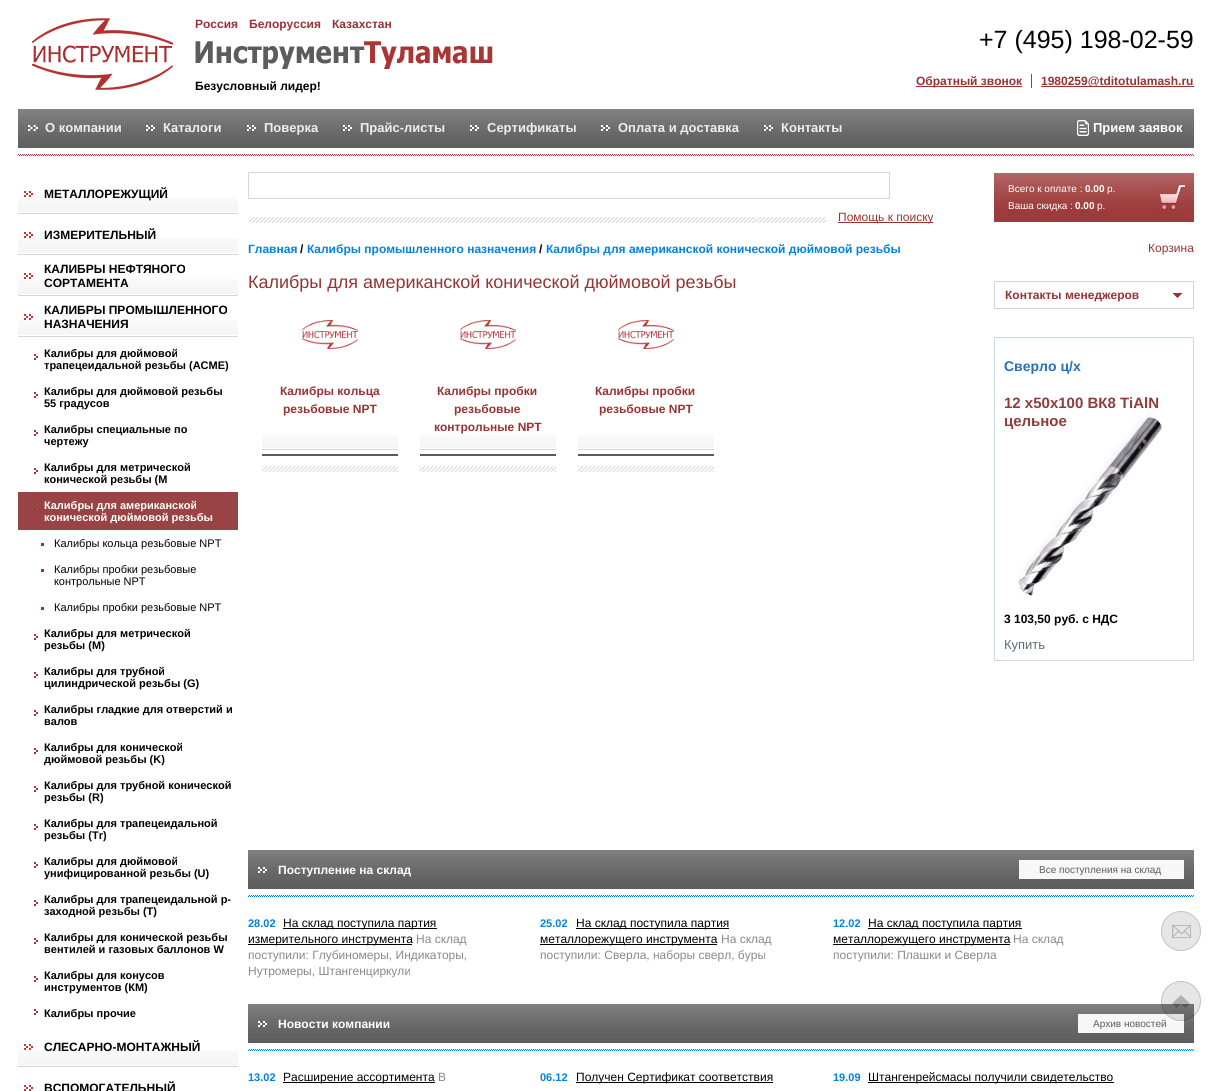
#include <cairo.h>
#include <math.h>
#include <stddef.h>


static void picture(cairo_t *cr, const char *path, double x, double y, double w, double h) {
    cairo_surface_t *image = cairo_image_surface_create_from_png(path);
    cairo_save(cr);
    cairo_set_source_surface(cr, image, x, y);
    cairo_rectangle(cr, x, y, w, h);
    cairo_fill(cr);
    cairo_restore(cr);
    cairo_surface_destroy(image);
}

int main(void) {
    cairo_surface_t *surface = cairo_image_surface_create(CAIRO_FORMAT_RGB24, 1211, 1091);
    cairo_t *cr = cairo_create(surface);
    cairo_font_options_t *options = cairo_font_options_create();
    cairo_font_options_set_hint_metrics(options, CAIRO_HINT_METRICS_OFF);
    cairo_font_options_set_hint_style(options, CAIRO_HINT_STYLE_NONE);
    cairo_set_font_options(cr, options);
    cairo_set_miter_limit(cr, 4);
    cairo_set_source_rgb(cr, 1, 1, 1);
    cairo_paint(cr);
    picture(cr, "img1.png", 32, 18, 141, 72);
    cairo_select_font_face(cr, "Liberation Sans", CAIRO_FONT_SLANT_NORMAL, CAIRO_FONT_WEIGHT_BOLD);
    cairo_set_font_size(cr, 12);
    cairo_set_source_rgb(cr, 0.592, 0.2, 0.2);
    cairo_move_to(cr, 195, 28);
    cairo_show_text(cr, "Россия");
    cairo_move_to(cr, 249, 28);
    cairo_show_text(cr, "Белоруссия");
    cairo_move_to(cr, 332, 28);
    cairo_show_text(cr, "Казахстан");
    picture(cr, "img2.png", 195, 41, 298, 28);
    cairo_set_source_rgb(cr, 0, 0, 0);
    cairo_move_to(cr, 195, 90);
    cairo_show_text(cr, "Безусловный лидер!");
    cairo_select_font_face(cr, "Liberation Sans", CAIRO_FONT_SLANT_NORMAL, CAIRO_FONT_WEIGHT_NORMAL);
    cairo_set_font_size(cr, 25);
    cairo_move_to(cr, 979, 48);
    cairo_show_text(cr, "+7 (495) 198-02-59");
    cairo_set_source_rgb(cr, 0.361, 0.361, 0.361);
    cairo_rectangle(cr, 1031, 74, 1, 14);
    cairo_fill(cr);
    cairo_set_source_rgb(cr, 0.6, 0.2, 0.2);
    cairo_rectangle(cr, 916, 86, 106, 1);
    cairo_fill(cr);
    cairo_select_font_face(cr, "Liberation Sans", CAIRO_FONT_SLANT_NORMAL, CAIRO_FONT_WEIGHT_BOLD);
    cairo_set_font_size(cr, 12);
    cairo_set_source_rgb(cr, 0.592, 0.2, 0.2);
    cairo_move_to(cr, 916, 85);
    cairo_show_text(cr, "Обратный звонок");
    cairo_set_source_rgb(cr, 0.6, 0.2, 0.2);
    cairo_rectangle(cr, 1041, 86, 153, 1);
    cairo_fill(cr);
    cairo_set_source_rgb(cr, 0.592, 0.2, 0.2);
    cairo_move_to(cr, 1041, 85);
    cairo_show_text(cr, "1980259@tditotulamash.ru");
    picture(cr, "img3.png", 18, 109, 1176, 48);
    picture(cr, "img4.png", 28, 125, 10, 6);
    cairo_set_font_size(cr, 13);
    cairo_set_source_rgb(cr, 0.933, 0.933, 0.933);
    cairo_move_to(cr, 45, 132);
    cairo_show_text(cr, "О компании");
    picture(cr, "img5.png", 146, 125, 9, 6);
    cairo_move_to(cr, 163, 132);
    cairo_show_text(cr, "Каталоги");
    picture(cr, "img6.png", 247, 125, 9, 6);
    cairo_move_to(cr, 264, 132);
    cairo_show_text(cr, "Поверка");
    picture(cr, "img6.png", 343, 125, 9, 6);
    cairo_move_to(cr, 360, 132);
    cairo_show_text(cr, "Прайс-листы");
    picture(cr, "img5.png", 470, 125, 9, 6);
    cairo_move_to(cr, 487, 132);
    cairo_show_text(cr, "Сертификаты");
    picture(cr, "img6.png", 601, 125, 9, 6);
    cairo_move_to(cr, 618, 132);
    cairo_show_text(cr, "Оплата и доставка");
    picture(cr, "img5.png", 764, 125, 9, 6);
    cairo_move_to(cr, 781, 132);
    cairo_show_text(cr, "Контакты");
    picture(cr, "img7.png", 1077, 120, 12, 16);
    cairo_set_source_rgb(cr, 1, 1, 1);
    cairo_move_to(cr, 1093, 132);
    cairo_show_text(cr, "Прием заявок");
    picture(cr, "img8.png", 18, 197, 220, 17);
    picture(cr, "img9.png", 24, 191, 9, 6);
    cairo_set_font_size(cr, 12);
    cairo_set_source_rgb(cr, 0, 0, 0);
    cairo_move_to(cr, 44, 198);
    cairo_show_text(cr, "МЕТАЛЛОРЕЖУЩИЙ");
    picture(cr, "img8.png", 18, 238, 220, 17);
    picture(cr, "img9.png", 24, 232, 9, 6);
    cairo_move_to(cr, 44, 239);
    cairo_show_text(cr, "ИЗМЕРИТЕЛЬНЫЙ");
    picture(cr, "img8.png", 18, 279, 220, 17);
    picture(cr, "img9.png", 24, 273, 9, 6);
    cairo_move_to(cr, 44, 273);
    cairo_show_text(cr, "КАЛИБРЫ НЕФТЯНОГО");
    cairo_move_to(cr, 44, 287);
    cairo_show_text(cr, "СОРТАМЕНТА");
    picture(cr, "img8.png", 18, 320, 220, 17);
    picture(cr, "img9.png", 24, 314, 9, 6);
    cairo_move_to(cr, 44, 314);
    cairo_show_text(cr, "КАЛИБРЫ ПРОМЫШЛЕННОГО");
    cairo_move_to(cr, 44, 328);
    cairo_show_text(cr, "НАЗНАЧЕНИЯ");
    picture(cr, "img10.png", 34, 354, 4, 6);
    cairo_set_font_size(cr, 11);
    cairo_move_to(cr, 44, 357);
    cairo_show_text(cr, "Калибры для дюймовой");
    cairo_move_to(cr, 44, 369);
    cairo_show_text(cr, "трапецеидальной резьбы (АСМЕ)");
    picture(cr, "img10.png", 34, 392, 4, 6);
    cairo_move_to(cr, 44, 395);
    cairo_show_text(cr, "Калибры для дюймовой резьбы");
    cairo_move_to(cr, 44, 407);
    cairo_show_text(cr, "55 градусов");
    picture(cr, "img10.png", 34, 430, 4, 6);
    cairo_move_to(cr, 44, 433);
    cairo_show_text(cr, "Калибры специальные по");
    cairo_move_to(cr, 44, 445);
    cairo_show_text(cr, "чертежу");
    picture(cr, "img10.png", 34, 468, 4, 6);
    cairo_move_to(cr, 44, 471);
    cairo_show_text(cr, "Калибры для метрической");
    cairo_move_to(cr, 44, 483);
    cairo_show_text(cr, "конической резьбы (М");
    cairo_set_source_rgb(cr, 0.604, 0.263, 0.271);
    cairo_rectangle(cr, 18, 492, 220, 38);
    cairo_fill(cr);
    picture(cr, "img11.png", 34, 509, 6, 4);
    cairo_set_source_rgb(cr, 1, 1, 1);
    cairo_move_to(cr, 44, 509);
    cairo_show_text(cr, "Калибры для американской");
    cairo_move_to(cr, 44, 521);
    cairo_show_text(cr, "конической дюймовой резьбы");
    cairo_set_source_rgb(cr, 0.6, 0.2, 0.2);
    cairo_rectangle(cr, 41, 543, 3, 3);
    cairo_fill(cr);
    cairo_select_font_face(cr, "Liberation Sans", CAIRO_FONT_SLANT_NORMAL, CAIRO_FONT_WEIGHT_NORMAL);
    cairo_set_source_rgb(cr, 0, 0, 0);
    cairo_move_to(cr, 54, 547);
    cairo_show_text(cr, "Калибры кольца резьбовые NPT");
    cairo_set_source_rgb(cr, 0.6, 0.2, 0.2);
    cairo_rectangle(cr, 41, 569, 3, 3);
    cairo_fill(cr);
    cairo_set_source_rgb(cr, 0, 0, 0);
    cairo_move_to(cr, 54, 573);
    cairo_show_text(cr, "Калибры пробки резьбовые");
    cairo_move_to(cr, 54, 585);
    cairo_show_text(cr, "контрольные NPT");
    cairo_set_source_rgb(cr, 0.6, 0.2, 0.2);
    cairo_rectangle(cr, 41, 607, 3, 3);
    cairo_fill(cr);
    cairo_set_source_rgb(cr, 0, 0, 0);
    cairo_move_to(cr, 54, 611);
    cairo_show_text(cr, "Калибры пробки резьбовые NPT");
    picture(cr, "img10.png", 34, 634, 4, 6);
    cairo_select_font_face(cr, "Liberation Sans", CAIRO_FONT_SLANT_NORMAL, CAIRO_FONT_WEIGHT_BOLD);
    cairo_move_to(cr, 44, 637);
    cairo_show_text(cr, "Калибры для метрической");
    cairo_move_to(cr, 44, 649);
    cairo_show_text(cr, "резьбы (М)");
    picture(cr, "img10.png", 34, 672, 4, 6);
    cairo_move_to(cr, 44, 675);
    cairo_show_text(cr, "Калибры для трубной");
    cairo_move_to(cr, 44, 687);
    cairo_show_text(cr, "цилиндрической резьбы (G)");
    picture(cr, "img10.png", 34, 710, 4, 6);
    cairo_move_to(cr, 44, 713);
    cairo_show_text(cr, "Калибры гладкие для отверстий и");
    cairo_move_to(cr, 44, 725);
    cairo_show_text(cr, "валов");
    picture(cr, "img10.png", 34, 748, 4, 6);
    cairo_move_to(cr, 44, 751);
    cairo_show_text(cr, "Калибры для конической");
    cairo_move_to(cr, 44, 763);
    cairo_show_text(cr, "дюймовой резьбы (K)");
    picture(cr, "img10.png", 34, 786, 4, 6);
    cairo_move_to(cr, 44, 789);
    cairo_show_text(cr, "Калибры для трубной конической");
    cairo_move_to(cr, 44, 801);
    cairo_show_text(cr, "резьбы (R)");
    picture(cr, "img10.png", 34, 824, 4, 6);
    cairo_move_to(cr, 44, 827);
    cairo_show_text(cr, "Калибры для трапецеидальной");
    cairo_move_to(cr, 44, 839);
    cairo_show_text(cr, "резьбы (Tr)");
    picture(cr, "img10.png", 34, 862, 4, 6);
    cairo_move_to(cr, 44, 865);
    cairo_show_text(cr, "Калибры для дюймовой");
    cairo_move_to(cr, 44, 877);
    cairo_show_text(cr, "унифицированной резьбы (U)");
    picture(cr, "img10.png", 34, 900, 4, 6);
    cairo_move_to(cr, 44, 903);
    cairo_show_text(cr, "Калибры для трапецеидальной p-");
    cairo_move_to(cr, 44, 915);
    cairo_show_text(cr, "заходной резьбы (T)");
    picture(cr, "img10.png", 34, 938, 4, 6);
    cairo_move_to(cr, 44, 941);
    cairo_show_text(cr, "Калибры для конической резьбы");
    cairo_move_to(cr, 44, 953);
    cairo_show_text(cr, "вентилей и газовых баллонов W");
    picture(cr, "img10.png", 34, 976, 4, 6);
    cairo_move_to(cr, 44, 979);
    cairo_show_text(cr, "Калибры для конусов");
    cairo_move_to(cr, 44, 991);
    cairo_show_text(cr, "инструментов (КМ)");
    picture(cr, "img10.png", 34, 1009, 4, 6);
    cairo_move_to(cr, 44, 1017);
    cairo_show_text(cr, "Калибры прочие");
    picture(cr, "img8.png", 18, 1050, 220, 17);
    picture(cr, "img9.png", 24, 1044, 9, 6);
    cairo_set_font_size(cr, 12);
    cairo_move_to(cr, 44, 1051);
    cairo_show_text(cr, "СЛЕСАРНО-МОНТАЖНЫЙ");
    picture(cr, "img9.png", 24, 1085, 9, 6);
    cairo_move_to(cr, 44, 1092);
    cairo_show_text(cr, "ВСПОМОГАТЕЛЬНЫЙ");
    cairo_rectangle(cr, 248.5, 172.5, 641, 26);
    cairo_set_source_rgb(cr, 0.835, 0.835, 0.835);
    cairo_set_line_width(cr, 1);
    cairo_stroke(cr);
    picture(cr, "img12.png", 249, 217, 507, 6);
    picture(cr, "img13.png", 756, 217, 70, 6);
    cairo_set_source_rgb(cr, 0.6, 0.2, 0.2);
    cairo_rectangle(cr, 838, 222, 95, 1);
    cairo_fill(cr);
    cairo_select_font_face(cr, "Liberation Sans", CAIRO_FONT_SLANT_NORMAL, CAIRO_FONT_WEIGHT_NORMAL);
    cairo_set_source_rgb(cr, 0.592, 0.2, 0.2);
    cairo_move_to(cr, 838, 221);
    cairo_show_text(cr, "Помощь к поиску");
    picture(cr, "img14.png", 994, 173, 200, 49);
    cairo_set_font_size(cr, 10);
    cairo_set_source_rgb(cr, 1, 1, 1);
    cairo_move_to(cr, 1008, 192);
    cairo_show_text(cr, "Всего к оплате :");
    cairo_select_font_face(cr, "Liberation Sans", CAIRO_FONT_SLANT_NORMAL, CAIRO_FONT_WEIGHT_BOLD);
    cairo_move_to(cr, 1085, 192);
    cairo_show_text(cr, "0.00");
    cairo_select_font_face(cr, "Liberation Sans", CAIRO_FONT_SLANT_NORMAL, CAIRO_FONT_WEIGHT_NORMAL);
    cairo_move_to(cr, 1107, 192);
    cairo_show_text(cr, "р.");
    cairo_move_to(cr, 1008, 209);
    cairo_show_text(cr, "Ваша скидка :");
    cairo_select_font_face(cr, "Liberation Sans", CAIRO_FONT_SLANT_NORMAL, CAIRO_FONT_WEIGHT_BOLD);
    cairo_move_to(cr, 1075, 209);
    cairo_show_text(cr, "0.00");
    cairo_select_font_face(cr, "Liberation Sans", CAIRO_FONT_SLANT_NORMAL, CAIRO_FONT_WEIGHT_NORMAL);
    cairo_move_to(cr, 1097, 209);
    cairo_show_text(cr, "р.");
    picture(cr, "img15.png", 1158, 183, 28, 27);
    cairo_set_font_size(cr, 12);
    cairo_set_source_rgb(cr, 0.592, 0.2, 0.2);
    cairo_move_to(cr, 1148, 252);
    cairo_show_text(cr, "Корзина");
    cairo_select_font_face(cr, "Liberation Sans", CAIRO_FONT_SLANT_NORMAL, CAIRO_FONT_WEIGHT_BOLD);
    cairo_set_source_rgb(cr, 0.008, 0.51, 0.863);
    cairo_move_to(cr, 248, 253);
    cairo_show_text(cr, "Главная");
    cairo_set_source_rgb(cr, 0, 0, 0);
    cairo_move_to(cr, 300, 253);
    cairo_show_text(cr, "/");
    cairo_set_source_rgb(cr, 0.008, 0.51, 0.863);
    cairo_move_to(cr, 307, 253);
    cairo_show_text(cr, "Калибры промышленного назначения");
    cairo_set_source_rgb(cr, 0, 0, 0);
    cairo_move_to(cr, 539, 253);
    cairo_show_text(cr, "/");
    cairo_set_source_rgb(cr, 0.008, 0.51, 0.863);
    cairo_move_to(cr, 546, 253);
    cairo_show_text(cr, "Калибры для американской конической дюймовой резьбы");
    cairo_select_font_face(cr, "Liberation Sans", CAIRO_FONT_SLANT_NORMAL, CAIRO_FONT_WEIGHT_NORMAL);
    cairo_set_font_size(cr, 18);
    cairo_set_source_rgb(cr, 0.592, 0.2, 0.2);
    cairo_move_to(cr, 248, 288);
    cairo_show_text(cr, "Калибры для американской конической дюймовой резьбы");
    picture(cr, "img16.png", 302, 320, 56, 29);
    picture(cr, "img17.png", 262, 434, 136, 22);
    cairo_select_font_face(cr, "Liberation Sans", CAIRO_FONT_SLANT_NORMAL, CAIRO_FONT_WEIGHT_BOLD);
    cairo_set_font_size(cr, 12);
    cairo_move_to(cr, 280, 395);
    cairo_show_text(cr, "Калибры кольца");
    cairo_move_to(cr, 283, 413);
    cairo_show_text(cr, "резьбовые NPT");
    picture(cr, "img18.png", 262, 466, 136, 6);
    picture(cr, "img19.png", 460, 320, 56, 29);
    picture(cr, "img17.png", 420, 434, 136, 22);
    cairo_move_to(cr, 437, 395);
    cairo_show_text(cr, "Калибры пробки");
    cairo_move_to(cr, 454, 413);
    cairo_show_text(cr, "резьбовые");
    cairo_move_to(cr, 434, 431);
    cairo_show_text(cr, "контрольные NPT");
    picture(cr, "img18.png", 420, 466, 136, 6);
    picture(cr, "img20.png", 618, 320, 56, 29);
    picture(cr, "img17.png", 578, 434, 136, 22);
    cairo_move_to(cr, 595, 395);
    cairo_show_text(cr, "Калибры пробки");
    cairo_move_to(cr, 599, 413);
    cairo_show_text(cr, "резьбовые NPT");
    picture(cr, "img18.png", 578, 466, 136, 6);
    cairo_rectangle(cr, 994.5, 281.5, 199, 27);
    cairo_set_source_rgb(cr, 0.827, 0.827, 0.827);
    cairo_stroke(cr);
    cairo_set_source_rgb(cr, 0.592, 0.2, 0.2);
    cairo_move_to(cr, 1005, 299);
    cairo_show_text(cr, "Контакты менеджеров");
    picture(cr, "img21.png", 1173, 293, 9, 5);
    picture(cr, "img22.png", 994, 337, 200, 324);
    cairo_set_font_size(cr, 14);
    cairo_set_source_rgb(cr, 0.153, 0.443, 0.722);
    cairo_move_to(cr, 1004, 371);
    cairo_show_text(cr, "Сверло ц/х");
    cairo_set_font_size(cr, 15);
    cairo_set_source_rgb(cr, 0.569, 0.235, 0.224);
    cairo_move_to(cr, 1004, 408);
    cairo_show_text(cr, "12 х50х100 ВК8 TiAlN");
    cairo_move_to(cr, 1004, 426);
    cairo_show_text(cr, "цельное");
    cairo_set_font_size(cr, 12);
    cairo_set_source_rgb(cr, 0, 0, 0);
    cairo_move_to(cr, 1004, 623);
    cairo_show_text(cr, "3 103,50 руб. с НДС");
    cairo_select_font_face(cr, "Liberation Sans", CAIRO_FONT_SLANT_NORMAL, CAIRO_FONT_WEIGHT_NORMAL);
    cairo_set_font_size(cr, 13);
    cairo_set_source_rgb(cr, 0.373, 0.424, 0.459);
    cairo_move_to(cr, 1004, 649);
    cairo_show_text(cr, "Купить");
    picture(cr, "img23.png", 248, 850, 946, 52);
    picture(cr, "img24.png", 258, 867, 9, 6);
    cairo_select_font_face(cr, "Liberation Sans", CAIRO_FONT_SLANT_NORMAL, CAIRO_FONT_WEIGHT_BOLD);
    cairo_set_font_size(cr, 12);
    cairo_set_source_rgb(cr, 1, 1, 1);
    cairo_move_to(cr, 278, 874);
    cairo_show_text(cr, "Поступление на склад");
    cairo_set_source_rgb(cr, 0.965, 0.965, 0.965);
    cairo_rectangle(cr, 1019, 860, 165, 19);
    cairo_fill(cr);
    cairo_select_font_face(cr, "Liberation Sans", CAIRO_FONT_SLANT_NORMAL, CAIRO_FONT_WEIGHT_NORMAL);
    cairo_set_font_size(cr, 10);
    cairo_set_source_rgb(cr, 0.361, 0.361, 0.361);
    cairo_move_to(cr, 1039, 873);
    cairo_show_text(cr, "Все поступления на склад");
    cairo_select_font_face(cr, "Liberation Sans", CAIRO_FONT_SLANT_NORMAL, CAIRO_FONT_WEIGHT_BOLD);
    cairo_set_font_size(cr, 11);
    cairo_set_source_rgb(cr, 0.008, 0.51, 0.863);
    cairo_move_to(cr, 248, 927);
    cairo_show_text(cr, "28.02");
    cairo_set_source_rgb(cr, 0, 0, 0);
    cairo_rectangle(cr, 283, 928, 154, 1);
    cairo_fill(cr);
    cairo_select_font_face(cr, "Liberation Sans", CAIRO_FONT_SLANT_NORMAL, CAIRO_FONT_WEIGHT_NORMAL);
    cairo_set_font_size(cr, 12);
    cairo_move_to(cr, 283, 927);
    cairo_show_text(cr, "На склад поступила партия");
    cairo_rectangle(cr, 248, 944, 164, 1);
    cairo_fill(cr);
    cairo_move_to(cr, 248, 943);
    cairo_show_text(cr, "измерительного инструмента");
    cairo_set_source_rgb(cr, 0.537, 0.537, 0.537);
    cairo_move_to(cr, 416, 943);
    cairo_show_text(cr, "На склад");
    cairo_move_to(cr, 248, 959);
    cairo_show_text(cr, "поступили: Глубиномеры, Индикаторы,");
    cairo_move_to(cr, 248, 975);
    cairo_show_text(cr, "Нутромеры, Штангенциркули");
    cairo_select_font_face(cr, "Liberation Sans", CAIRO_FONT_SLANT_NORMAL, CAIRO_FONT_WEIGHT_BOLD);
    cairo_set_font_size(cr, 11);
    cairo_set_source_rgb(cr, 0.008, 0.51, 0.863);
    cairo_move_to(cr, 540, 927);
    cairo_show_text(cr, "25.02");
    cairo_set_source_rgb(cr, 0, 0, 0);
    cairo_rectangle(cr, 576, 928, 153, 1);
    cairo_fill(cr);
    cairo_select_font_face(cr, "Liberation Sans", CAIRO_FONT_SLANT_NORMAL, CAIRO_FONT_WEIGHT_NORMAL);
    cairo_set_font_size(cr, 12);
    cairo_move_to(cr, 576, 927);
    cairo_show_text(cr, "На склад поступила партия");
    cairo_rectangle(cr, 540, 944, 177, 1);
    cairo_fill(cr);
    cairo_move_to(cr, 540, 943);
    cairo_show_text(cr, "металлорежущего инструмента");
    cairo_set_source_rgb(cr, 0.537, 0.537, 0.537);
    cairo_move_to(cr, 721, 943);
    cairo_show_text(cr, "На склад");
    cairo_move_to(cr, 540, 959);
    cairo_show_text(cr, "поступили: Сверла, наборы сверл, буры");
    cairo_select_font_face(cr, "Liberation Sans", CAIRO_FONT_SLANT_NORMAL, CAIRO_FONT_WEIGHT_BOLD);
    cairo_set_font_size(cr, 11);
    cairo_set_source_rgb(cr, 0.008, 0.51, 0.863);
    cairo_move_to(cr, 833, 927);
    cairo_show_text(cr, "12.02");
    cairo_set_source_rgb(cr, 0, 0, 0);
    cairo_rectangle(cr, 868, 928, 154, 1);
    cairo_fill(cr);
    cairo_select_font_face(cr, "Liberation Sans", CAIRO_FONT_SLANT_NORMAL, CAIRO_FONT_WEIGHT_NORMAL);
    cairo_set_font_size(cr, 12);
    cairo_move_to(cr, 868, 927);
    cairo_show_text(cr, "На склад поступила партия");
    cairo_rectangle(cr, 833, 944, 177, 1);
    cairo_fill(cr);
    cairo_move_to(cr, 833, 943);
    cairo_show_text(cr, "металлорежущего инструмента");
    cairo_set_source_rgb(cr, 0.537, 0.537, 0.537);
    cairo_move_to(cr, 1013, 943);
    cairo_show_text(cr, "На склад");
    cairo_move_to(cr, 833, 959);
    cairo_show_text(cr, "поступили: Плашки и Сверла");
    picture(cr, "img23.png", 248, 1004, 946, 52);
    picture(cr, "img24.png", 258, 1021, 9, 6);
    cairo_select_font_face(cr, "Liberation Sans", CAIRO_FONT_SLANT_NORMAL, CAIRO_FONT_WEIGHT_BOLD);
    cairo_set_source_rgb(cr, 1, 1, 1);
    cairo_move_to(cr, 278, 1028);
    cairo_show_text(cr, "Новости компании");
    cairo_set_source_rgb(cr, 0.965, 0.965, 0.965);
    cairo_rectangle(cr, 1078, 1014, 106, 19);
    cairo_fill(cr);
    cairo_select_font_face(cr, "Liberation Sans", CAIRO_FONT_SLANT_NORMAL, CAIRO_FONT_WEIGHT_NORMAL);
    cairo_set_font_size(cr, 10);
    cairo_set_source_rgb(cr, 0.361, 0.361, 0.361);
    cairo_move_to(cr, 1093, 1027);
    cairo_show_text(cr, "Архив новостей");
    cairo_select_font_face(cr, "Liberation Sans", CAIRO_FONT_SLANT_NORMAL, CAIRO_FONT_WEIGHT_BOLD);
    cairo_set_font_size(cr, 11);
    cairo_set_source_rgb(cr, 0.008, 0.51, 0.863);
    cairo_move_to(cr, 248, 1081);
    cairo_show_text(cr, "13.02");
    cairo_set_source_rgb(cr, 0, 0, 0);
    cairo_rectangle(cr, 283, 1082, 152, 1);
    cairo_fill(cr);
    cairo_select_font_face(cr, "Liberation Sans", CAIRO_FONT_SLANT_NORMAL, CAIRO_FONT_WEIGHT_NORMAL);
    cairo_set_font_size(cr, 12);
    cairo_move_to(cr, 283, 1081);
    cairo_show_text(cr, "Расширение ассортимента");
    cairo_set_source_rgb(cr, 0.537, 0.537, 0.537);
    cairo_move_to(cr, 438, 1081);
    cairo_show_text(cr, "В");
    cairo_select_font_face(cr, "Liberation Sans", CAIRO_FONT_SLANT_NORMAL, CAIRO_FONT_WEIGHT_BOLD);
    cairo_set_font_size(cr, 11);
    cairo_set_source_rgb(cr, 0.008, 0.51, 0.863);
    cairo_move_to(cr, 540, 1081);
    cairo_show_text(cr, "06.12");
    cairo_set_source_rgb(cr, 0, 0, 0);
    cairo_rectangle(cr, 576, 1082, 197, 1);
    cairo_fill(cr);
    cairo_select_font_face(cr, "Liberation Sans", CAIRO_FONT_SLANT_NORMAL, CAIRO_FONT_WEIGHT_NORMAL);
    cairo_set_font_size(cr, 12);
    cairo_move_to(cr, 576, 1081);
    cairo_show_text(cr, "Получен Сертификат соответствия");
    cairo_select_font_face(cr, "Liberation Sans", CAIRO_FONT_SLANT_NORMAL, CAIRO_FONT_WEIGHT_BOLD);
    cairo_set_font_size(cr, 11);
    cairo_set_source_rgb(cr, 0.008, 0.51, 0.863);
    cairo_move_to(cr, 833, 1081);
    cairo_show_text(cr, "19.09");
    cairo_set_source_rgb(cr, 0, 0, 0);
    cairo_rectangle(cr, 868, 1082, 246, 1);
    cairo_fill(cr);
    cairo_select_font_face(cr, "Liberation Sans", CAIRO_FONT_SLANT_NORMAL, CAIRO_FONT_WEIGHT_NORMAL);
    cairo_set_font_size(cr, 12);
    cairo_move_to(cr, 868, 1081);
    cairo_show_text(cr, "Штангенрейсмасы получили свидетельство");
    picture(cr, "img25.png", 1161, 911, 40, 40);
    picture(cr, "img26.png", 1161, 981, 40, 40);
    cairo_surface_write_to_png(surface, "page.png");
    cairo_font_options_destroy(options);
    cairo_destroy(cr);
    cairo_surface_destroy(surface);
    return 0;
}
